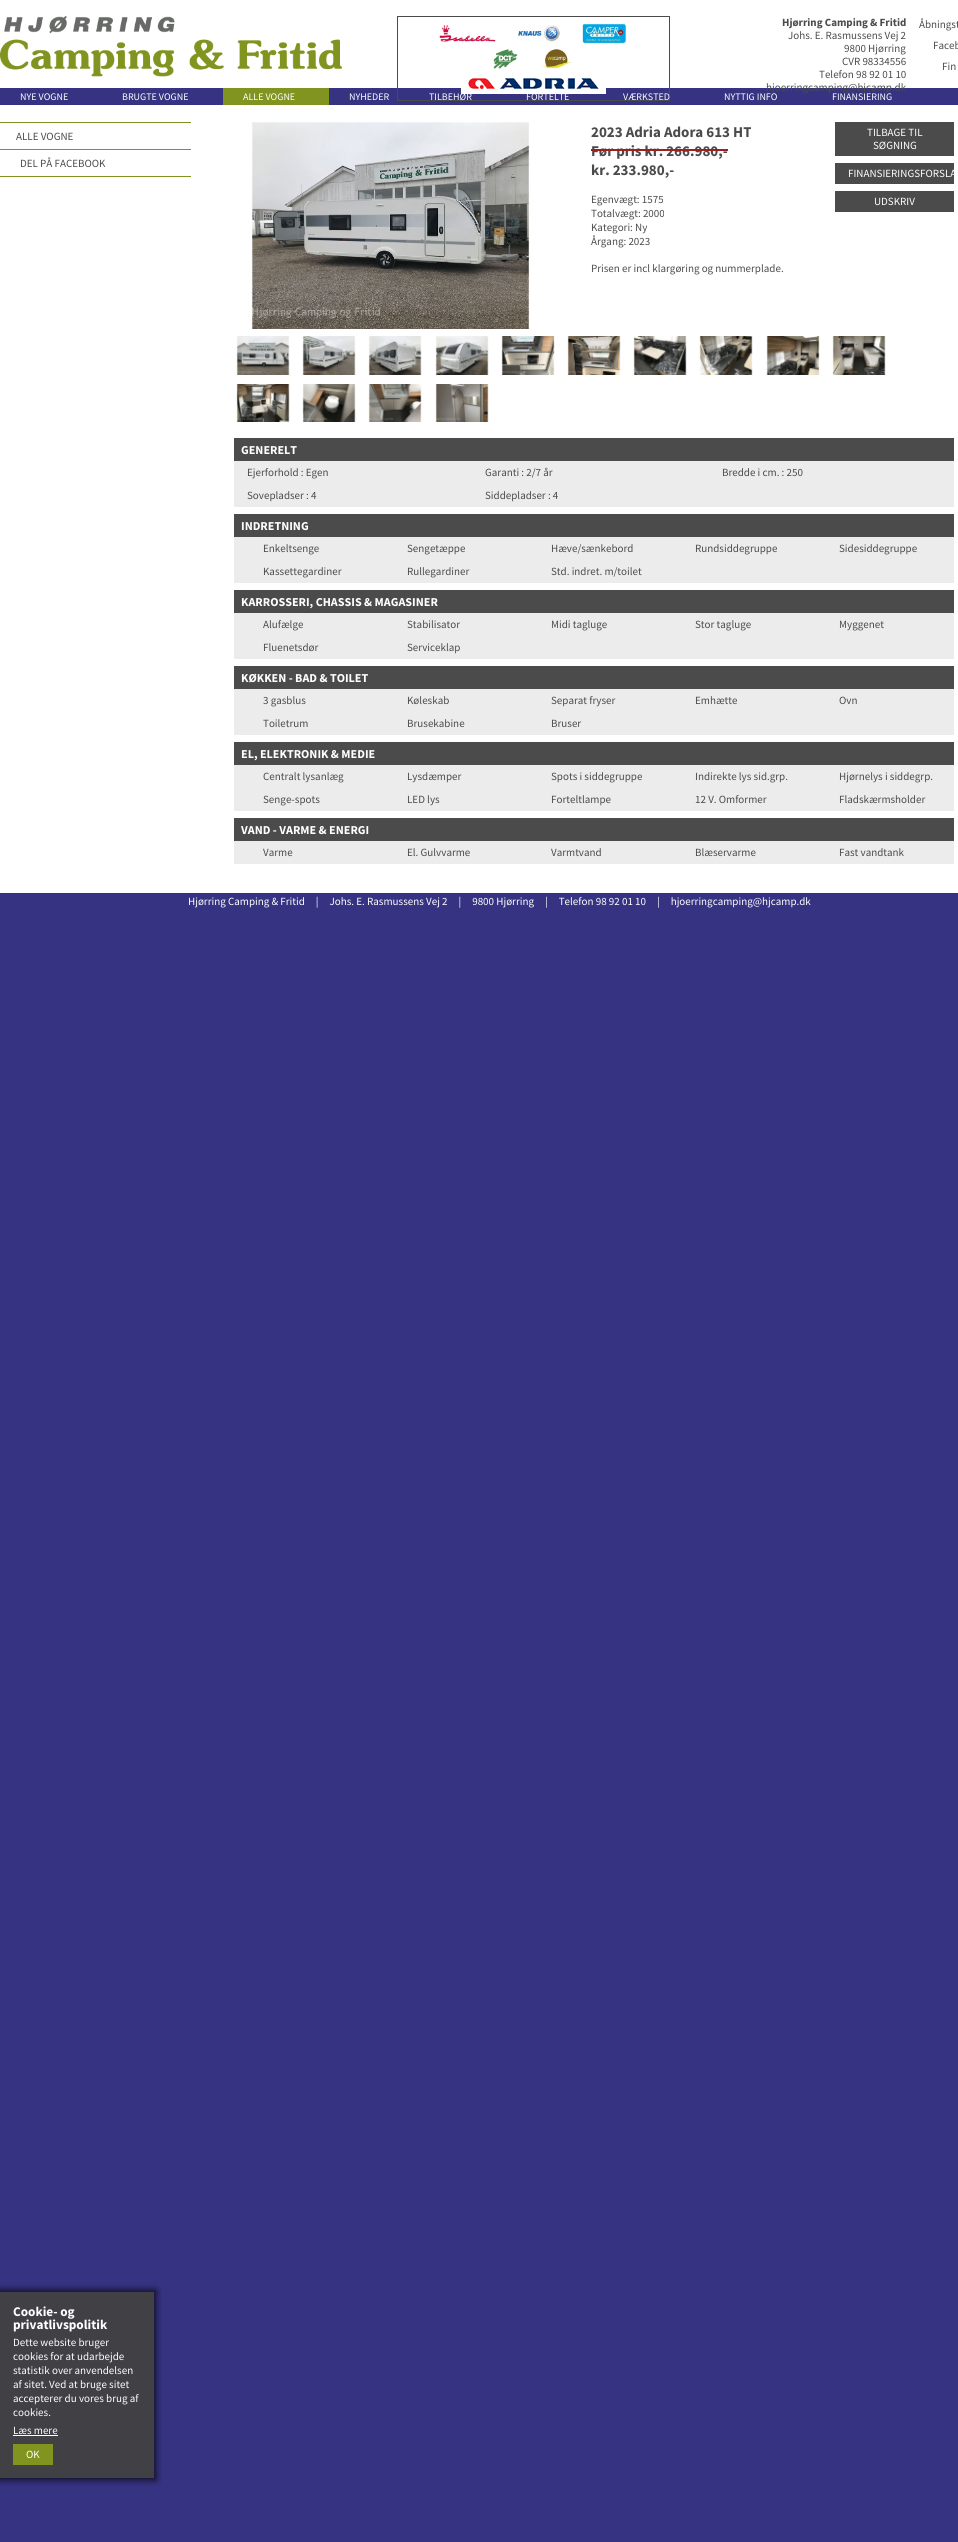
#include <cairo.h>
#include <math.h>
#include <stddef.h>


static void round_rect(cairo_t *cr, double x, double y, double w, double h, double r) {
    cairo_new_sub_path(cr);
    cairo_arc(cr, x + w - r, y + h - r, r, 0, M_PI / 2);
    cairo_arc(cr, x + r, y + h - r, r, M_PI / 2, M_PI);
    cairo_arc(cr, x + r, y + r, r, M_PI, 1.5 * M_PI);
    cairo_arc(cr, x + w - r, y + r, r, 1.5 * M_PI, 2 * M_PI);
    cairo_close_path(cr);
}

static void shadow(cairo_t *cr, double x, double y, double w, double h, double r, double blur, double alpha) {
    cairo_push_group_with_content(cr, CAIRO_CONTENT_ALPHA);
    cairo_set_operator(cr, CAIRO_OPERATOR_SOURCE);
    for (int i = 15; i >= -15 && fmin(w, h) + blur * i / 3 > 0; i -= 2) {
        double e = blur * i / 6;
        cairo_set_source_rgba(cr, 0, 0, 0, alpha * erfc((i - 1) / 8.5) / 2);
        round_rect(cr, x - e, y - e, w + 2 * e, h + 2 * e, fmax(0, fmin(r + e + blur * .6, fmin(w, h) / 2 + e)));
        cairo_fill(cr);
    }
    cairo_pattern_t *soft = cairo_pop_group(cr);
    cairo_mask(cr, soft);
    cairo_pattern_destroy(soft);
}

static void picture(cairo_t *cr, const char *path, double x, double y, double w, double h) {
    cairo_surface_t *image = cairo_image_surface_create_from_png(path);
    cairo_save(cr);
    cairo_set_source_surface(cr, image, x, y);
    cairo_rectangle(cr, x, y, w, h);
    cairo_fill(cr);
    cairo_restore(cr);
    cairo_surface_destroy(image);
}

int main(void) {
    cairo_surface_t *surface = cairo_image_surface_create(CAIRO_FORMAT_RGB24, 958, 2542);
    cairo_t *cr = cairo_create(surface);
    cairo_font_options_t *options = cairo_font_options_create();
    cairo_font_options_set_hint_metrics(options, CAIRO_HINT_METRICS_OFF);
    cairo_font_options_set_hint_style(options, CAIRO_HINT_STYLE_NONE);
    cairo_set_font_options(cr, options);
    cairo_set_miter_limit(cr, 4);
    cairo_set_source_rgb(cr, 0.212, 0.2, 0.51);
    cairo_paint(cr);
    cairo_set_source_rgb(cr, 1, 1, 1);
    cairo_rectangle(cr, 0, 0, 958, 88);
    cairo_fill(cr);
    picture(cr, "img1.png", 0, 16, 342, 61);
    cairo_rectangle(cr, 397.5, 16.5, 272, 84);
    cairo_set_source_rgb(cr, 0.294, 0.294, 0.294);
    cairo_set_line_width(cr, 1);
    cairo_stroke(cr);
    picture(cr, "img2.png", 439, 25, 57, 17);
    picture(cr, "img3.png", 518, 25, 42, 17);
    picture(cr, "img4.png", 582, 23, 45, 21);
    picture(cr, "img5.png", 493, 49, 25, 20);
    picture(cr, "img6.png", 541, 49, 32, 20);
    picture(cr, "img7.png", 461, 78, 145, 16);
    cairo_select_font_face(cr, "Source Sans Pro", CAIRO_FONT_SLANT_NORMAL, CAIRO_FONT_WEIGHT_BOLD);
    cairo_set_font_size(cr, 11);
    cairo_move_to(cr, 782, 26);
    cairo_show_text(cr, "Hjørring Camping & Fritid");
    cairo_select_font_face(cr, "Source Sans Pro", CAIRO_FONT_SLANT_NORMAL, CAIRO_FONT_WEIGHT_NORMAL);
    cairo_move_to(cr, 788, 39);
    cairo_show_text(cr, "Johs. E. Rasmussens Vej 2");
    cairo_move_to(cr, 844, 52);
    cairo_show_text(cr, "9800 Hjørring");
    cairo_move_to(cr, 842, 65);
    cairo_show_text(cr, "CVR 98334556");
    cairo_move_to(cr, 819, 78);
    cairo_show_text(cr, "Telefon 98 92 01 10");
    cairo_move_to(cr, 766, 91);
    cairo_show_text(cr, "hjoerringcamping@hjcamp.dk");
    cairo_move_to(cr, 919, 28);
    cairo_show_text(cr, "Åbningst");
    cairo_move_to(cr, 933, 49);
    cairo_show_text(cr, "Faceb");
    cairo_move_to(cr, 942, 70);
    cairo_show_text(cr, "Fin");
    cairo_set_font_size(cr, 10);
    cairo_set_source_rgb(cr, 1, 1, 1);
    cairo_move_to(cr, 20, 100);
    cairo_show_text(cr, "NYE VOGNE");
    cairo_move_to(cr, 122, 100);
    cairo_show_text(cr, "BRUGTE VOGNE");
    cairo_set_source_rgb(cr, 0.502, 0.58, 0.122);
    cairo_rectangle(cr, 223, 88, 106, 17);
    cairo_fill(cr);
    cairo_set_source_rgb(cr, 1, 1, 1);
    cairo_move_to(cr, 243, 100);
    cairo_show_text(cr, "ALLE VOGNE");
    cairo_move_to(cr, 349, 100);
    cairo_show_text(cr, "NYHEDER");
    cairo_move_to(cr, 429, 100);
    cairo_show_text(cr, "TILBEHØR");
    cairo_move_to(cr, 526, 100);
    cairo_show_text(cr, "FORTELTE");
    cairo_move_to(cr, 623, 100);
    cairo_show_text(cr, "VÆRKSTED");
    cairo_move_to(cr, 724, 100);
    cairo_show_text(cr, "NYTTIG INFO");
    cairo_move_to(cr, 832, 100);
    cairo_show_text(cr, "FINANSIERING");
    cairo_rectangle(cr, 0, 105, 958, 788);
    cairo_fill(cr);
    cairo_set_source_rgb(cr, 0.502, 0.58, 0.122);
    cairo_rectangle(cr, 0, 122, 191, 1);
    cairo_fill(cr);
    cairo_set_font_size(cr, 11);
    cairo_set_source_rgb(cr, 0.294, 0.294, 0.294);
    cairo_move_to(cr, 16, 140);
    cairo_show_text(cr, "ALLE VOGNE");
    cairo_set_source_rgb(cr, 0.502, 0.58, 0.122);
    cairo_rectangle(cr, 0, 149, 191, 1);
    cairo_fill(cr);
    cairo_rectangle(cr, 0, 176, 191, 1);
    cairo_fill(cr);
    cairo_set_source_rgb(cr, 0.294, 0.294, 0.294);
    cairo_move_to(cr, 20, 167);
    cairo_show_text(cr, "DEL PÅ FACEBOOK");
    picture(cr, "img8.png", 251, 122, 279, 207);
    cairo_select_font_face(cr, "Source Sans Pro", CAIRO_FONT_SLANT_NORMAL, CAIRO_FONT_WEIGHT_BOLD);
    cairo_set_font_size(cr, 15);
    cairo_move_to(cr, 591, 137);
    cairo_show_text(cr, "2023 Adria Adora 613 HT");
    cairo_move_to(cr, 591, 156);
    cairo_show_text(cr, "Før pris kr. 266.980,-");
    cairo_set_source_rgb(cr, 0.616, 0.122, 0.141);
    cairo_rectangle(cr, 591, 149, 137, 2);
    cairo_fill(cr);
    cairo_set_source_rgb(cr, 0.294, 0.294, 0.294);
    cairo_move_to(cr, 591, 175);
    cairo_show_text(cr, "kr. 233.980,-");
    cairo_select_font_face(cr, "Source Sans Pro", CAIRO_FONT_SLANT_NORMAL, CAIRO_FONT_WEIGHT_NORMAL);
    cairo_set_font_size(cr, 11);
    cairo_move_to(cr, 591, 203);
    cairo_show_text(cr, "Egenvægt: 1575");
    cairo_move_to(cr, 591, 217);
    cairo_show_text(cr, "Totalvægt: 2000");
    cairo_move_to(cr, 591, 231);
    cairo_show_text(cr, "Kategori: Ny");
    cairo_move_to(cr, 591, 245);
    cairo_show_text(cr, "Årgang: 2023");
    cairo_move_to(cr, 591, 272);
    cairo_show_text(cr, "Prisen er incl klargøring og nummerplade.");
    cairo_rectangle(cr, 835, 122, 119, 34);
    cairo_fill(cr);
    cairo_set_source_rgb(cr, 1, 1, 1);
    cairo_move_to(cr, 867, 136);
    cairo_show_text(cr, "TILBAGE TIL");
    cairo_move_to(cr, 873, 149);
    cairo_show_text(cr, "SØGNING");
    cairo_set_source_rgb(cr, 0.294, 0.294, 0.294);
    cairo_rectangle(cr, 835, 163, 119, 21);
    cairo_fill(cr);
    cairo_set_source_rgb(cr, 1, 1, 1);
    cairo_move_to(cr, 848, 177);
    cairo_show_text(cr, "FINANSIERINGSFORSLA");
    cairo_set_source_rgb(cr, 0.294, 0.294, 0.294);
    cairo_rectangle(cr, 835, 191, 119, 21);
    cairo_fill(cr);
    cairo_set_source_rgb(cr, 1, 1, 1);
    cairo_move_to(cr, 874, 205);
    cairo_show_text(cr, "UDSKRIV");
    picture(cr, "img9.png", 236, 336, 54, 39);
    picture(cr, "img10.png", 302, 336, 54, 39);
    picture(cr, "img11.png", 368, 336, 54, 39);
    picture(cr, "img12.png", 435, 336, 54, 39);
    picture(cr, "img13.png", 501, 336, 54, 39);
    picture(cr, "img14.png", 567, 336, 54, 39);
    picture(cr, "img15.png", 633, 336, 54, 39);
    picture(cr, "img16.png", 699, 336, 54, 39);
    picture(cr, "img17.png", 766, 336, 54, 39);
    picture(cr, "img18.png", 832, 336, 54, 39);
    picture(cr, "img19.png", 236, 384, 54, 38);
    picture(cr, "img20.png", 302, 384, 54, 38);
    picture(cr, "img21.png", 368, 384, 54, 38);
    picture(cr, "img22.png", 435, 384, 54, 38);
    cairo_set_source_rgb(cr, 0.922, 0.925, 0.929);
    cairo_rectangle(cr, 234, 461, 720, 403);
    cairo_fill(cr);
    cairo_set_source_rgb(cr, 0.294, 0.294, 0.294);
    cairo_rectangle(cr, 234, 438, 720, 23);
    cairo_fill(cr);
    cairo_select_font_face(cr, "Source Sans Pro", CAIRO_FONT_SLANT_NORMAL, CAIRO_FONT_WEIGHT_BOLD);
    cairo_set_font_size(cr, 12.1);
    cairo_set_source_rgb(cr, 1, 1, 1);
    cairo_move_to(cr, 241, 454);
    cairo_show_text(cr, "GENERELT");
    cairo_select_font_face(cr, "Source Sans Pro", CAIRO_FONT_SLANT_NORMAL, CAIRO_FONT_WEIGHT_NORMAL);
    cairo_set_font_size(cr, 11);
    cairo_set_source_rgb(cr, 0.294, 0.294, 0.294);
    cairo_move_to(cr, 247, 476);
    cairo_show_text(cr, "Ejerforhold : Egen");
    cairo_move_to(cr, 485, 476);
    cairo_show_text(cr, "Garanti : 2/7 år");
    cairo_move_to(cr, 722, 476);
    cairo_show_text(cr, "Bredde i cm. : 250");
    cairo_move_to(cr, 247, 499);
    cairo_show_text(cr, "Sovepladser : 4");
    cairo_move_to(cr, 485, 499);
    cairo_show_text(cr, "Siddepladser : 4");
    cairo_set_source_rgb(cr, 1, 1, 1);
    cairo_rectangle(cr, 234, 507, 720, 7);
    cairo_fill(cr);
    cairo_set_source_rgb(cr, 0.294, 0.294, 0.294);
    cairo_rectangle(cr, 234, 514, 720, 23);
    cairo_fill(cr);
    cairo_select_font_face(cr, "Source Sans Pro", CAIRO_FONT_SLANT_NORMAL, CAIRO_FONT_WEIGHT_BOLD);
    cairo_set_font_size(cr, 12.1);
    cairo_set_source_rgb(cr, 1, 1, 1);
    cairo_move_to(cr, 241, 530);
    cairo_show_text(cr, "INDRETNING");
    cairo_select_font_face(cr, "Source Sans Pro", CAIRO_FONT_SLANT_NORMAL, CAIRO_FONT_WEIGHT_NORMAL);
    cairo_set_font_size(cr, 11);
    cairo_set_source_rgb(cr, 0.294, 0.294, 0.294);
    cairo_move_to(cr, 263, 552);
    cairo_show_text(cr, "Enkeltsenge");
    cairo_move_to(cr, 407, 552);
    cairo_show_text(cr, "Sengetæppe");
    cairo_move_to(cr, 551, 552);
    cairo_show_text(cr, "Hæve/sænkebord");
    cairo_move_to(cr, 695, 552);
    cairo_show_text(cr, "Rundsiddegruppe");
    cairo_move_to(cr, 839, 552);
    cairo_show_text(cr, "Sidesiddegruppe");
    cairo_move_to(cr, 263, 575);
    cairo_show_text(cr, "Kassettegardiner");
    cairo_move_to(cr, 407, 575);
    cairo_show_text(cr, "Rullegardiner");
    cairo_move_to(cr, 551, 575);
    cairo_show_text(cr, "Std. indret. m/toilet");
    cairo_set_source_rgb(cr, 1, 1, 1);
    cairo_rectangle(cr, 234, 583, 720, 7);
    cairo_fill(cr);
    cairo_set_source_rgb(cr, 0.294, 0.294, 0.294);
    cairo_rectangle(cr, 234, 590, 720, 23);
    cairo_fill(cr);
    cairo_select_font_face(cr, "Source Sans Pro", CAIRO_FONT_SLANT_NORMAL, CAIRO_FONT_WEIGHT_BOLD);
    cairo_set_font_size(cr, 12.1);
    cairo_set_source_rgb(cr, 1, 1, 1);
    cairo_move_to(cr, 241, 606);
    cairo_show_text(cr, "KARROSSERI, CHASSIS & MAGASINER");
    cairo_select_font_face(cr, "Source Sans Pro", CAIRO_FONT_SLANT_NORMAL, CAIRO_FONT_WEIGHT_NORMAL);
    cairo_set_font_size(cr, 11);
    cairo_set_source_rgb(cr, 0.294, 0.294, 0.294);
    cairo_move_to(cr, 263, 628);
    cairo_show_text(cr, "Alufælge");
    cairo_move_to(cr, 407, 628);
    cairo_show_text(cr, "Stabilisator");
    cairo_move_to(cr, 551, 628);
    cairo_show_text(cr, "Midi tagluge");
    cairo_move_to(cr, 695, 628);
    cairo_show_text(cr, "Stor tagluge");
    cairo_move_to(cr, 839, 628);
    cairo_show_text(cr, "Myggenet");
    cairo_move_to(cr, 263, 651);
    cairo_show_text(cr, "Fluenetsdør");
    cairo_move_to(cr, 407, 651);
    cairo_show_text(cr, "Serviceklap");
    cairo_set_source_rgb(cr, 1, 1, 1);
    cairo_rectangle(cr, 234, 659, 720, 7);
    cairo_fill(cr);
    cairo_set_source_rgb(cr, 0.294, 0.294, 0.294);
    cairo_rectangle(cr, 234, 666, 720, 23);
    cairo_fill(cr);
    cairo_select_font_face(cr, "Source Sans Pro", CAIRO_FONT_SLANT_NORMAL, CAIRO_FONT_WEIGHT_BOLD);
    cairo_set_font_size(cr, 12.1);
    cairo_set_source_rgb(cr, 1, 1, 1);
    cairo_move_to(cr, 241, 682);
    cairo_show_text(cr, "KØKKEN - BAD & TOILET");
    cairo_select_font_face(cr, "Source Sans Pro", CAIRO_FONT_SLANT_NORMAL, CAIRO_FONT_WEIGHT_NORMAL);
    cairo_set_font_size(cr, 11);
    cairo_set_source_rgb(cr, 0.294, 0.294, 0.294);
    cairo_move_to(cr, 263, 704);
    cairo_show_text(cr, "3 gasblus");
    cairo_move_to(cr, 407, 704);
    cairo_show_text(cr, "Køleskab");
    cairo_move_to(cr, 551, 704);
    cairo_show_text(cr, "Separat fryser");
    cairo_move_to(cr, 695, 704);
    cairo_show_text(cr, "Emhætte");
    cairo_move_to(cr, 839, 704);
    cairo_show_text(cr, "Ovn");
    cairo_move_to(cr, 263, 727);
    cairo_show_text(cr, "Toiletrum");
    cairo_move_to(cr, 407, 727);
    cairo_show_text(cr, "Brusekabine");
    cairo_move_to(cr, 551, 727);
    cairo_show_text(cr, "Bruser");
    cairo_set_source_rgb(cr, 1, 1, 1);
    cairo_rectangle(cr, 234, 735, 720, 7);
    cairo_fill(cr);
    cairo_set_source_rgb(cr, 0.294, 0.294, 0.294);
    cairo_rectangle(cr, 234, 742, 720, 23);
    cairo_fill(cr);
    cairo_select_font_face(cr, "Source Sans Pro", CAIRO_FONT_SLANT_NORMAL, CAIRO_FONT_WEIGHT_BOLD);
    cairo_set_font_size(cr, 12.1);
    cairo_set_source_rgb(cr, 1, 1, 1);
    cairo_move_to(cr, 241, 758);
    cairo_show_text(cr, "EL, ELEKTRONIK & MEDIE");
    cairo_select_font_face(cr, "Source Sans Pro", CAIRO_FONT_SLANT_NORMAL, CAIRO_FONT_WEIGHT_NORMAL);
    cairo_set_font_size(cr, 11);
    cairo_set_source_rgb(cr, 0.294, 0.294, 0.294);
    cairo_move_to(cr, 263, 780);
    cairo_show_text(cr, "Centralt lysanlæg");
    cairo_move_to(cr, 407, 780);
    cairo_show_text(cr, "Lysdæmper");
    cairo_move_to(cr, 551, 780);
    cairo_show_text(cr, "Spots i siddegruppe");
    cairo_move_to(cr, 695, 780);
    cairo_show_text(cr, "Indirekte lys sid.grp.");
    cairo_move_to(cr, 839, 780);
    cairo_show_text(cr, "Hjørnelys i siddegrp.");
    cairo_move_to(cr, 263, 803);
    cairo_show_text(cr, "Senge-spots");
    cairo_move_to(cr, 407, 803);
    cairo_show_text(cr, "LED lys");
    cairo_move_to(cr, 551, 803);
    cairo_show_text(cr, "Forteltlampe");
    cairo_move_to(cr, 695, 803);
    cairo_show_text(cr, "12 V. Omformer");
    cairo_move_to(cr, 839, 803);
    cairo_show_text(cr, "Fladskærmsholder");
    cairo_set_source_rgb(cr, 1, 1, 1);
    cairo_rectangle(cr, 234, 811, 720, 7);
    cairo_fill(cr);
    cairo_set_source_rgb(cr, 0.294, 0.294, 0.294);
    cairo_rectangle(cr, 234, 818, 720, 23);
    cairo_fill(cr);
    cairo_select_font_face(cr, "Source Sans Pro", CAIRO_FONT_SLANT_NORMAL, CAIRO_FONT_WEIGHT_BOLD);
    cairo_set_font_size(cr, 12.1);
    cairo_set_source_rgb(cr, 1, 1, 1);
    cairo_move_to(cr, 241, 834);
    cairo_show_text(cr, "VAND - VARME & ENERGI");
    cairo_select_font_face(cr, "Source Sans Pro", CAIRO_FONT_SLANT_NORMAL, CAIRO_FONT_WEIGHT_NORMAL);
    cairo_set_font_size(cr, 11);
    cairo_set_source_rgb(cr, 0.294, 0.294, 0.294);
    cairo_move_to(cr, 263, 856);
    cairo_show_text(cr, "Varme");
    cairo_move_to(cr, 407, 856);
    cairo_show_text(cr, "El. Gulvvarme");
    cairo_move_to(cr, 551, 856);
    cairo_show_text(cr, "Varmtvand");
    cairo_move_to(cr, 695, 856);
    cairo_show_text(cr, "Blæservarme");
    cairo_move_to(cr, 839, 856);
    cairo_show_text(cr, "Fast vandtank");
    cairo_set_source_rgb(cr, 1, 1, 1);
    cairo_move_to(cr, 188, 905);
    cairo_show_text(cr, "Hjørring Camping & Fritid     |     Johs. E. Rasmussens Vej 2     |     9800 Hjørring     |     Telefon 98 92 01 10     |     hjoerringcamping@hjcamp.dk");
    cairo_set_source_rgb(cr, 0, 0, 0);
    shadow(cr, -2, 2290, 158, 190, 0, 3.5, 0.75);
    cairo_set_source_rgb(cr, 0.251, 0.251, 0.271);
    cairo_rectangle(cr, 0, 2292, 154, 186);
    cairo_fill(cr);
    cairo_select_font_face(cr, "Source Sans Pro", CAIRO_FONT_SLANT_NORMAL, CAIRO_FONT_WEIGHT_BOLD);
    cairo_set_font_size(cr, 13.25);
    cairo_set_source_rgb(cr, 1, 1, 1);
    cairo_move_to(cr, 13, 2316);
    cairo_show_text(cr, "Cookie- og");
    cairo_move_to(cr, 13, 2329);
    cairo_show_text(cr, "privatlivspolitik");
    cairo_select_font_face(cr, "Source Sans Pro", CAIRO_FONT_SLANT_NORMAL, CAIRO_FONT_WEIGHT_NORMAL);
    cairo_set_font_size(cr, 11);
    cairo_move_to(cr, 13, 2346);
    cairo_show_text(cr, "Dette website bruger");
    cairo_move_to(cr, 13, 2360);
    cairo_show_text(cr, "cookies for at udarbejde");
    cairo_move_to(cr, 13, 2374);
    cairo_show_text(cr, "statistik over anvendelsen");
    cairo_move_to(cr, 13, 2388);
    cairo_show_text(cr, "af sitet. Ved at bruge sitet");
    cairo_move_to(cr, 13, 2402);
    cairo_show_text(cr, "accepterer du vores brug af");
    cairo_move_to(cr, 13, 2416);
    cairo_show_text(cr, "cookies.");
    cairo_move_to(cr, 13, 2434);
    cairo_show_text(cr, "Læs mere");
    cairo_rectangle(cr, 13, 2435, 45, 1);
    cairo_fill(cr);
    cairo_set_source_rgb(cr, 0.502, 0.58, 0.122);
    cairo_rectangle(cr, 13, 2444, 40, 21);
    cairo_fill(cr);
    cairo_set_source_rgb(cr, 1, 1, 1);
    cairo_move_to(cr, 26, 2458);
    cairo_show_text(cr, "OK");
    cairo_surface_write_to_png(surface, "page.png");
    cairo_font_options_destroy(options);
    cairo_destroy(cr);
    cairo_surface_destroy(surface);
    return 0;
}
